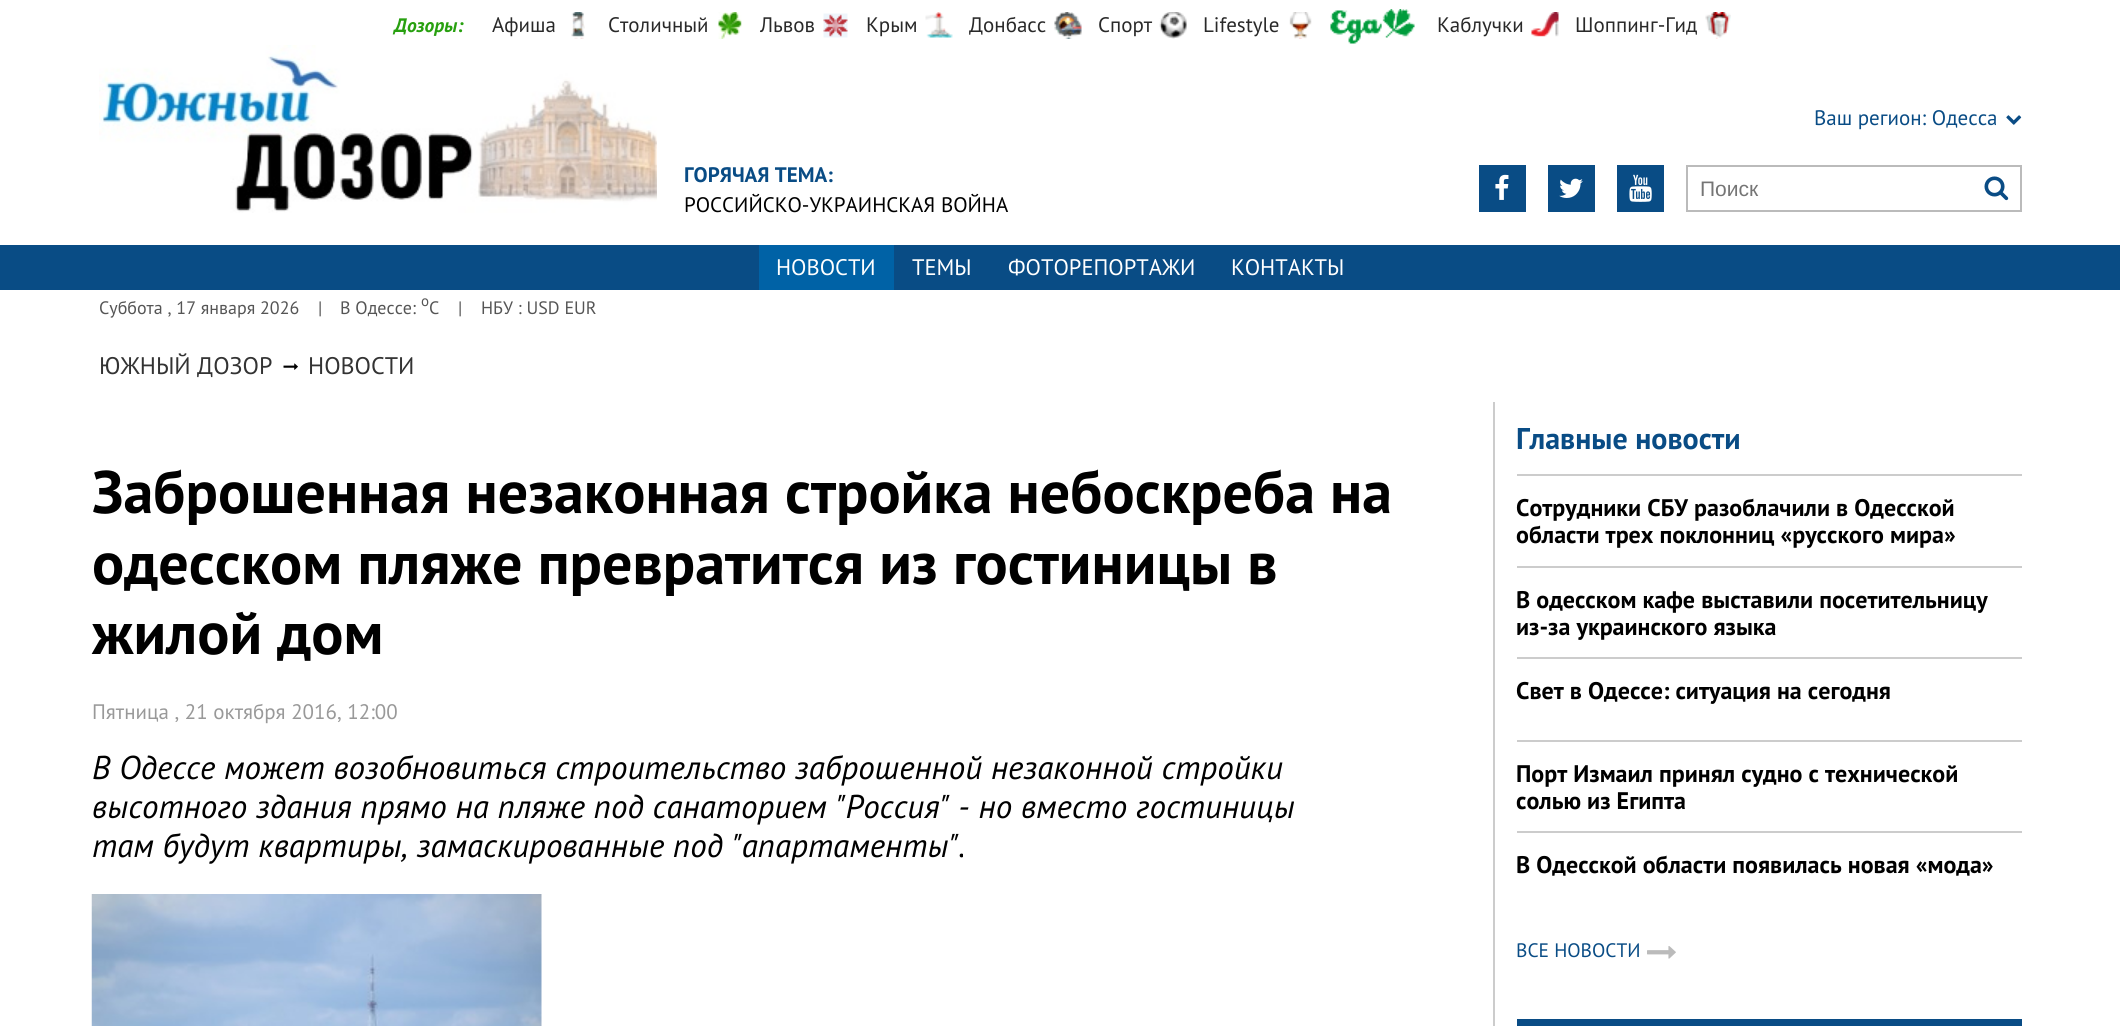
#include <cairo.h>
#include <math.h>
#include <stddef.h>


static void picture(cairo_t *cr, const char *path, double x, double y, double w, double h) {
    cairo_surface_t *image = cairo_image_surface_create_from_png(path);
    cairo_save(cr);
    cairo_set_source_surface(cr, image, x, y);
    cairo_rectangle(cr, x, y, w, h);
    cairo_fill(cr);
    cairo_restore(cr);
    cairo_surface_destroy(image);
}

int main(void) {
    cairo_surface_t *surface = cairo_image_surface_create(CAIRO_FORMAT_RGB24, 2120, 1026);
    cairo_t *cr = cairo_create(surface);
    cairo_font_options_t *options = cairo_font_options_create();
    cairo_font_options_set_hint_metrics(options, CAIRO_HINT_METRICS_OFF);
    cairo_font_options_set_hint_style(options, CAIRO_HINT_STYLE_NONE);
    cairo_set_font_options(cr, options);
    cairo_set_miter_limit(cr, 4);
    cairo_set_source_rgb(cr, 1, 1, 1);
    cairo_paint(cr);
    cairo_select_font_face(cr, "PT Sans", CAIRO_FONT_SLANT_ITALIC, CAIRO_FONT_WEIGHT_BOLD);
    cairo_set_font_size(cr, 19.5);
    cairo_set_source_rgb(cr, 0.157, 0.627, 0.063);
    cairo_move_to(cr, 394, 32);
    cairo_show_text(cr, "Дозоры:");
    cairo_select_font_face(cr, "PT Sans", CAIRO_FONT_SLANT_NORMAL, CAIRO_FONT_WEIGHT_NORMAL);
    cairo_set_font_size(cr, 21);
    cairo_set_source_rgb(cr, 0.161, 0.161, 0.161);
    cairo_move_to(cr, 492, 32);
    cairo_show_text(cr, "Афиша");
    picture(cr, "img1.png", 571, 12, 14, 27);
    cairo_move_to(cr, 608, 32);
    cairo_show_text(cr, "Столичный");
    picture(cr, "img2.png", 718, 12, 24, 27);
    cairo_move_to(cr, 760, 32);
    cairo_show_text(cr, "Львов");
    picture(cr, "img3.png", 823, 13, 25, 25);
    cairo_move_to(cr, 866, 32);
    cairo_show_text(cr, "Крым");
    picture(cr, "img4.png", 925, 12, 28, 26);
    cairo_move_to(cr, 969, 32);
    cairo_show_text(cr, "Донбасс");
    picture(cr, "img5.png", 1054, 12, 28, 27);
    cairo_move_to(cr, 1098, 32);
    cairo_show_text(cr, "Спорт");
    picture(cr, "img6.png", 1159, 12, 28, 27);
    cairo_move_to(cr, 1203, 32);
    cairo_show_text(cr, "Lifestyle");
    picture(cr, "img7.png", 1289, 12, 23, 27);
    picture(cr, "img8.png", 1330, 9, 85, 35);
    cairo_move_to(cr, 1437, 32);
    cairo_show_text(cr, "Каблучки");
    picture(cr, "img9.png", 1531, 12, 28, 25);
    cairo_move_to(cr, 1575, 32);
    cairo_show_text(cr, "Шоппинг-Гид");
    picture(cr, "img10.png", 1705, 12, 26, 27);
    picture(cr, "img11.png", 99, 45, 558, 168);
    cairo_select_font_face(cr, "PT Sans", CAIRO_FONT_SLANT_NORMAL, CAIRO_FONT_WEIGHT_BOLD);
    cairo_set_source_rgb(cr, 0.039, 0.298, 0.522);
    cairo_move_to(cr, 684, 182);
    cairo_show_text(cr, "ГОРЯЧАЯ ТЕМА:");
    cairo_select_font_face(cr, "PT Sans", CAIRO_FONT_SLANT_NORMAL, CAIRO_FONT_WEIGHT_NORMAL);
    cairo_set_source_rgb(cr, 0, 0, 0);
    cairo_move_to(cr, 684, 212);
    cairo_show_text(cr, "РОССИЙСКО-УКРАИНСКАЯ ВОЙНА");
    cairo_set_source_rgb(cr, 0.039, 0.298, 0.522);
    cairo_move_to(cr, 1814, 125);
    cairo_show_text(cr, "Ваш регион: Одесса");
    picture(cr, "img12.png", 2006, 115, 16, 10);
    cairo_rectangle(cr, 1479, 165, 47, 47);
    cairo_fill(cr);
    picture(cr, "img13.png", 1495, 174, 14, 26);
    cairo_rectangle(cr, 1548, 165, 47, 47);
    cairo_fill(cr);
    picture(cr, "img14.png", 1559, 178, 24, 20);
    cairo_rectangle(cr, 1617, 165, 47, 47);
    cairo_fill(cr);
    picture(cr, "img15.png", 1629, 174, 23, 28);
    cairo_rectangle(cr, 1687, 166, 334, 45);
    cairo_set_source_rgb(cr, 0.733, 0.733, 0.733);
    cairo_stroke(cr);
    cairo_select_font_face(cr, "Liberation Sans", CAIRO_FONT_SLANT_NORMAL, CAIRO_FONT_WEIGHT_NORMAL);
    cairo_set_source_rgb(cr, 0.459, 0.459, 0.459);
    cairo_move_to(cr, 1700, 196);
    cairo_show_text(cr, "Поиск");
    picture(cr, "img16.png", 1984, 176, 25, 25);
    cairo_set_source_rgb(cr, 0.039, 0.298, 0.522);
    cairo_rectangle(cr, 0, 245, 2120, 45);
    cairo_fill(cr);
    cairo_set_source_rgb(cr, 0, 0.384, 0.651);
    cairo_rectangle(cr, 759, 245, 135, 45);
    cairo_fill(cr);
    cairo_select_font_face(cr, "PT Sans", CAIRO_FONT_SLANT_NORMAL, CAIRO_FONT_WEIGHT_NORMAL);
    cairo_set_font_size(cr, 22.5);
    cairo_set_source_rgb(cr, 1, 1, 1);
    cairo_move_to(cr, 776, 275);
    cairo_show_text(cr, "НОВОСТИ");
    cairo_move_to(cr, 912, 275);
    cairo_show_text(cr, "ТЕМЫ");
    cairo_move_to(cr, 1008, 275);
    cairo_show_text(cr, "ФОТОРЕПОРТАЖИ");
    cairo_move_to(cr, 1231, 275);
    cairo_show_text(cr, "КОНТАКТЫ");
    cairo_set_font_size(cr, 18);
    cairo_set_source_rgb(cr, 0.333, 0.333, 0.333);
    cairo_move_to(cr, 99, 314);
    cairo_show_text(cr, "Суббота , 17 января 2026");
    cairo_move_to(cr, 318, 314);
    cairo_show_text(cr, "|");
    cairo_move_to(cr, 340, 314);
    cairo_show_text(cr, "В Одессе:");
    cairo_set_font_size(cr, 15);
    cairo_move_to(cr, 421, 306);
    cairo_show_text(cr, "о");
    cairo_set_font_size(cr, 18);
    cairo_move_to(cr, 429, 314);
    cairo_show_text(cr, "С");
    cairo_move_to(cr, 458, 314);
    cairo_show_text(cr, "|");
    cairo_move_to(cr, 481, 314);
    cairo_show_text(cr, "НБУ : USD EUR");
    cairo_set_font_size(cr, 24);
    cairo_set_source_rgb(cr, 0.2, 0.2, 0.2);
    cairo_move_to(cr, 99, 374);
    cairo_show_text(cr, "ЮЖНЫЙ ДОЗОР");
    picture(cr, "img17.png", 283, 363, 15, 7);
    cairo_move_to(cr, 308, 374);
    cairo_show_text(cr, "НОВОСТИ");
    cairo_set_source_rgb(cr, 0.8, 0.8, 0.8);
    cairo_rectangle(cr, 1493, 402, 2, 624);
    cairo_fill(cr);
    cairo_select_font_face(cr, "PT Sans", CAIRO_FONT_SLANT_NORMAL, CAIRO_FONT_WEIGHT_BOLD);
    cairo_set_font_size(cr, 60);
    cairo_set_source_rgb(cr, 0, 0, 0);
    cairo_move_to(cr, 92, 513);
    cairo_show_text(cr, "Заброшенная незаконная стройка небоскреба на");
    cairo_move_to(cr, 92, 584);
    cairo_show_text(cr, "одесском пляже превратится из гостиницы в");
    cairo_move_to(cr, 92, 654);
    cairo_show_text(cr, "жилой дом");
    cairo_select_font_face(cr, "PT Sans", CAIRO_FONT_SLANT_NORMAL, CAIRO_FONT_WEIGHT_NORMAL);
    cairo_set_font_size(cr, 21);
    cairo_set_source_rgb(cr, 0.6, 0.6, 0.6);
    cairo_move_to(cr, 92, 719);
    cairo_show_text(cr, "Пятница , 21 октября 2016, 12:00");
    cairo_select_font_face(cr, "PT Sans", CAIRO_FONT_SLANT_ITALIC, CAIRO_FONT_WEIGHT_NORMAL);
    cairo_set_font_size(cr, 33);
    cairo_set_source_rgb(cr, 0, 0, 0);
    cairo_move_to(cr, 92, 779);
    cairo_show_text(cr, "В Одессе может возобновиться строительство заброшенной незаконной стройки");
    cairo_move_to(cr, 92, 818);
    cairo_show_text(cr, "высотного здания прямо на пляже под санаторием \"Россия\" - но вместо гостиницы");
    cairo_move_to(cr, 92, 857);
    cairo_show_text(cr, "там будут квартиры, замаскированные под \"апартаменты\".");
    picture(cr, "img18.png", 91, 894, 451, 132);
    cairo_select_font_face(cr, "PT Sans", CAIRO_FONT_SLANT_NORMAL, CAIRO_FONT_WEIGHT_BOLD);
    cairo_set_font_size(cr, 30);
    cairo_set_source_rgb(cr, 0.039, 0.298, 0.522);
    cairo_move_to(cr, 1516, 449);
    cairo_show_text(cr, "Главные новости");
    cairo_set_source_rgb(cr, 0.8, 0.8, 0.8);
    cairo_rectangle(cr, 1517, 474, 505, 2);
    cairo_fill(cr);
    cairo_set_font_size(cr, 24);
    cairo_set_source_rgb(cr, 0, 0, 0);
    cairo_move_to(cr, 1516, 516);
    cairo_show_text(cr, "Сотрудники СБУ разоблачили в Одесской");
    cairo_move_to(cr, 1516, 543);
    cairo_show_text(cr, "области трех поклонниц «русского мира»");
    cairo_set_source_rgb(cr, 0.8, 0.8, 0.8);
    cairo_rectangle(cr, 1517, 566, 505, 2);
    cairo_fill(cr);
    cairo_set_source_rgb(cr, 0, 0, 0);
    cairo_move_to(cr, 1516, 608);
    cairo_show_text(cr, "В одесском кафе выставили посетительницу");
    cairo_move_to(cr, 1516, 635);
    cairo_show_text(cr, "из-за украинского языка");
    cairo_set_source_rgb(cr, 0.8, 0.8, 0.8);
    cairo_rectangle(cr, 1517, 657, 505, 2);
    cairo_fill(cr);
    cairo_set_source_rgb(cr, 0, 0, 0);
    cairo_move_to(cr, 1516, 699);
    cairo_show_text(cr, "Свет в Одессе: ситуация на сегодня");
    cairo_set_source_rgb(cr, 0.8, 0.8, 0.8);
    cairo_rectangle(cr, 1517, 740, 505, 2);
    cairo_fill(cr);
    cairo_set_source_rgb(cr, 0, 0, 0);
    cairo_move_to(cr, 1516, 782);
    cairo_show_text(cr, "Порт Измаил принял судно с технической");
    cairo_move_to(cr, 1516, 809);
    cairo_show_text(cr, "солью из Египта");
    cairo_set_source_rgb(cr, 0.8, 0.8, 0.8);
    cairo_rectangle(cr, 1517, 831, 505, 2);
    cairo_fill(cr);
    cairo_set_source_rgb(cr, 0, 0, 0);
    cairo_move_to(cr, 1516, 873);
    cairo_show_text(cr, "В Одесской области появилась новая «мода»");
    cairo_select_font_face(cr, "PT Sans", CAIRO_FONT_SLANT_NORMAL, CAIRO_FONT_WEIGHT_NORMAL);
    cairo_set_font_size(cr, 19.5);
    cairo_set_source_rgb(cr, 0.039, 0.298, 0.522);
    cairo_move_to(cr, 1516, 957);
    cairo_show_text(cr, "ВСЕ НОВОСТИ");
    picture(cr, "img19.png", 1647, 946, 29, 13);
    cairo_rectangle(cr, 1517, 1019, 505, 7);
    cairo_fill(cr);
    cairo_surface_write_to_png(surface, "page.png");
    cairo_font_options_destroy(options);
    cairo_destroy(cr);
    cairo_surface_destroy(surface);
    return 0;
}
